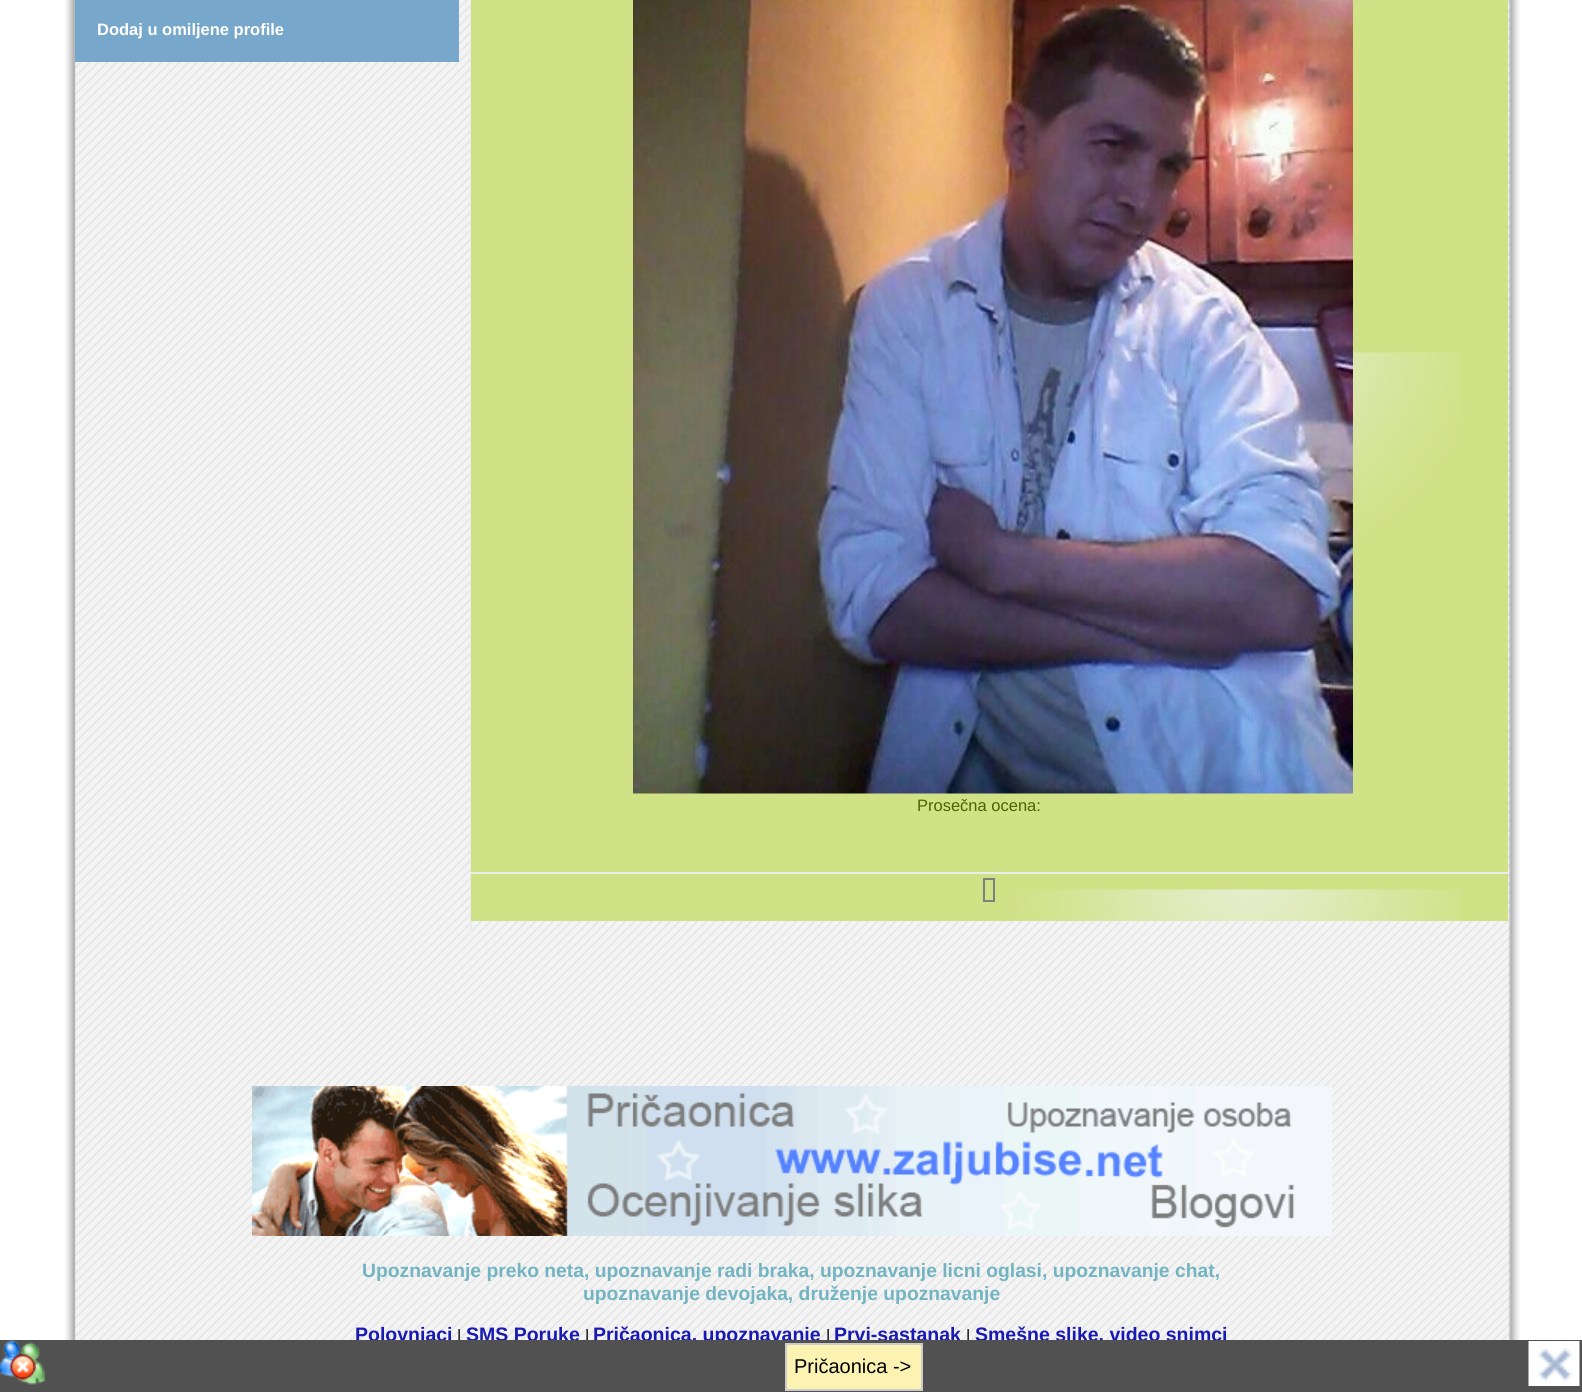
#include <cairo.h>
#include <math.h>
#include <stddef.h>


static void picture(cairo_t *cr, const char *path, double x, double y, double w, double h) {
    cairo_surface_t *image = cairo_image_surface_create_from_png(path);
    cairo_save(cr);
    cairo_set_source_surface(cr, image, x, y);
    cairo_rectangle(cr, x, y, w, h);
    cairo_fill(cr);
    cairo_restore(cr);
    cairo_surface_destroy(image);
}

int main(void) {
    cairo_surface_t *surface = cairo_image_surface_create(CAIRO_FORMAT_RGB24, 1582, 1392);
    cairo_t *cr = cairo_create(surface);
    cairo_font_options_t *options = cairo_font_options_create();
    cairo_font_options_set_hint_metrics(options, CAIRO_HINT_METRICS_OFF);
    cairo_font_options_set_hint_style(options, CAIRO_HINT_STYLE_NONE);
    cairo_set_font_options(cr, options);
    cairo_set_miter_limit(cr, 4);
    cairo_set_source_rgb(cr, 1, 1, 1);
    cairo_paint(cr);
    picture(cr, "img1.png", 65, 0, 1455, 1340);
    cairo_set_source_rgb(cr, 0.467, 0.655, 0.796);
    cairo_rectangle(cr, 75, 0, 384, 62);
    cairo_fill(cr);
    cairo_select_font_face(cr, "Liberation Sans", CAIRO_FONT_SLANT_NORMAL, CAIRO_FONT_WEIGHT_BOLD);
    cairo_set_font_size(cr, 16.5);
    cairo_set_source_rgb(cr, 1, 1, 1);
    cairo_move_to(cr, 97, 35);
    cairo_show_text(cr, "Dodaj u omiljene profile");
    cairo_set_source_rgb(cr, 0.922, 0.922, 0.922);
    cairo_rectangle(cr, 470, 0, 2, 933);
    cairo_fill(cr);
    cairo_set_source_rgb(cr, 0.82, 0.882, 0.525);
    cairo_rectangle(cr, 1461, 0, 47, 921);
    cairo_fill(cr);
    picture(cr, "img2.png", 471, 0, 990, 921);
    picture(cr, "img3.png", 633, 0, 720, 794);
    cairo_select_font_face(cr, "Liberation Sans", CAIRO_FONT_SLANT_NORMAL, CAIRO_FONT_WEIGHT_NORMAL);
    cairo_set_source_rgb(cr, 0.31, 0.373, 0.004);
    cairo_move_to(cr, 917, 811);
    cairo_show_text(cr, "Prosečna ocena:");
    cairo_set_source_rgb(cr, 0.922, 0.922, 0.922);
    cairo_rectangle(cr, 471, 872, 1037, 2);
    cairo_fill(cr);
    cairo_set_source_rgb(cr, 0.502, 0.502, 0.502);
    cairo_rectangle(cr, 983, 878, 12, 2);
    cairo_fill(cr);
    cairo_rectangle(cr, 993, 878, 2, 24);
    cairo_fill(cr);
    cairo_rectangle(cr, 983, 900, 12, 2);
    cairo_fill(cr);
    cairo_rectangle(cr, 983, 878, 2, 24);
    cairo_fill(cr);
    picture(cr, "img4.png", 252, 1086, 1080, 150);
    cairo_select_font_face(cr, "Liberation Sans", CAIRO_FONT_SLANT_NORMAL, CAIRO_FONT_WEIGHT_BOLD);
    cairo_set_font_size(cr, 19.3);
    cairo_set_source_rgb(cr, 0.451, 0.706, 0.761);
    cairo_move_to(cr, 362, 1277);
    cairo_show_text(cr, "Upoznavanje preko neta, upoznavanje radi braka, upoznavanje licni oglasi, upoznavanje chat,");
    cairo_move_to(cr, 583, 1300);
    cairo_show_text(cr, "upoznavanje devojaka, druženje upoznavanje");
    cairo_set_font_size(cr, 19.5);
    cairo_set_source_rgb(cr, 0.098, 0.098, 0.702);
    cairo_move_to(cr, 355, 1341);
    cairo_show_text(cr, "Polovnjaci");
    cairo_select_font_face(cr, "Liberation Sans", CAIRO_FONT_SLANT_NORMAL, CAIRO_FONT_WEIGHT_NORMAL);
    cairo_set_font_size(cr, 16.5);
    cairo_set_source_rgb(cr, 0, 0, 0);
    cairo_move_to(cr, 457, 1341);
    cairo_show_text(cr, "|");
    cairo_select_font_face(cr, "Liberation Sans", CAIRO_FONT_SLANT_NORMAL, CAIRO_FONT_WEIGHT_BOLD);
    cairo_set_font_size(cr, 19.5);
    cairo_set_source_rgb(cr, 0.098, 0.098, 0.702);
    cairo_move_to(cr, 466, 1341);
    cairo_show_text(cr, "SMS Poruke");
    cairo_select_font_face(cr, "Liberation Sans", CAIRO_FONT_SLANT_NORMAL, CAIRO_FONT_WEIGHT_NORMAL);
    cairo_set_font_size(cr, 16.5);
    cairo_set_source_rgb(cr, 0, 0, 0);
    cairo_move_to(cr, 585, 1341);
    cairo_show_text(cr, "|");
    cairo_select_font_face(cr, "Liberation Sans", CAIRO_FONT_SLANT_NORMAL, CAIRO_FONT_WEIGHT_BOLD);
    cairo_set_font_size(cr, 19.5);
    cairo_set_source_rgb(cr, 0.098, 0.098, 0.702);
    cairo_move_to(cr, 593, 1341);
    cairo_show_text(cr, "Pričaonica, upoznavanje");
    cairo_select_font_face(cr, "Liberation Sans", CAIRO_FONT_SLANT_NORMAL, CAIRO_FONT_WEIGHT_NORMAL);
    cairo_set_font_size(cr, 16.5);
    cairo_set_source_rgb(cr, 0, 0, 0);
    cairo_move_to(cr, 826, 1341);
    cairo_show_text(cr, "|");
    cairo_select_font_face(cr, "Liberation Sans", CAIRO_FONT_SLANT_NORMAL, CAIRO_FONT_WEIGHT_BOLD);
    cairo_set_font_size(cr, 19.5);
    cairo_set_source_rgb(cr, 0.098, 0.098, 0.702);
    cairo_move_to(cr, 834, 1341);
    cairo_show_text(cr, "Prvi-sastanak");
    cairo_select_font_face(cr, "Liberation Sans", CAIRO_FONT_SLANT_NORMAL, CAIRO_FONT_WEIGHT_NORMAL);
    cairo_set_font_size(cr, 16.5);
    cairo_set_source_rgb(cr, 0, 0, 0);
    cairo_move_to(cr, 966, 1341);
    cairo_show_text(cr, "|");
    cairo_select_font_face(cr, "Liberation Sans", CAIRO_FONT_SLANT_NORMAL, CAIRO_FONT_WEIGHT_BOLD);
    cairo_set_font_size(cr, 19.5);
    cairo_set_source_rgb(cr, 0.098, 0.098, 0.702);
    cairo_move_to(cr, 975, 1341);
    cairo_show_text(cr, "Smešne slike, video snimci");
    cairo_set_source_rgb(cr, 0.318, 0.318, 0.318);
    cairo_rectangle(cr, 0, 1340, 1582, 52);
    cairo_fill(cr);
    picture(cr, "img5.png", 0, 1339, 45, 46);
    cairo_set_source_rgb(cr, 0.988, 0.953, 0.702);
    cairo_rectangle(cr, 786, 1344, 136, 46);
    cairo_fill_preserve(cr);
    cairo_set_source_rgb(cr, 0.8, 0.8, 0.8);
    cairo_stroke(cr);
    cairo_select_font_face(cr, "Liberation Sans", CAIRO_FONT_SLANT_NORMAL, CAIRO_FONT_WEIGHT_NORMAL);
    cairo_set_font_size(cr, 20);
    cairo_set_source_rgb(cr, 0, 0, 0);
    cairo_move_to(cr, 794, 1373);
    cairo_show_text(cr, "Pričaonica ->");
    picture(cr, "img6.png", 1528, 1341, 52, 45);
    cairo_surface_write_to_png(surface, "page.png");
    cairo_font_options_destroy(options);
    cairo_destroy(cr);
    cairo_surface_destroy(surface);
    return 0;
}
